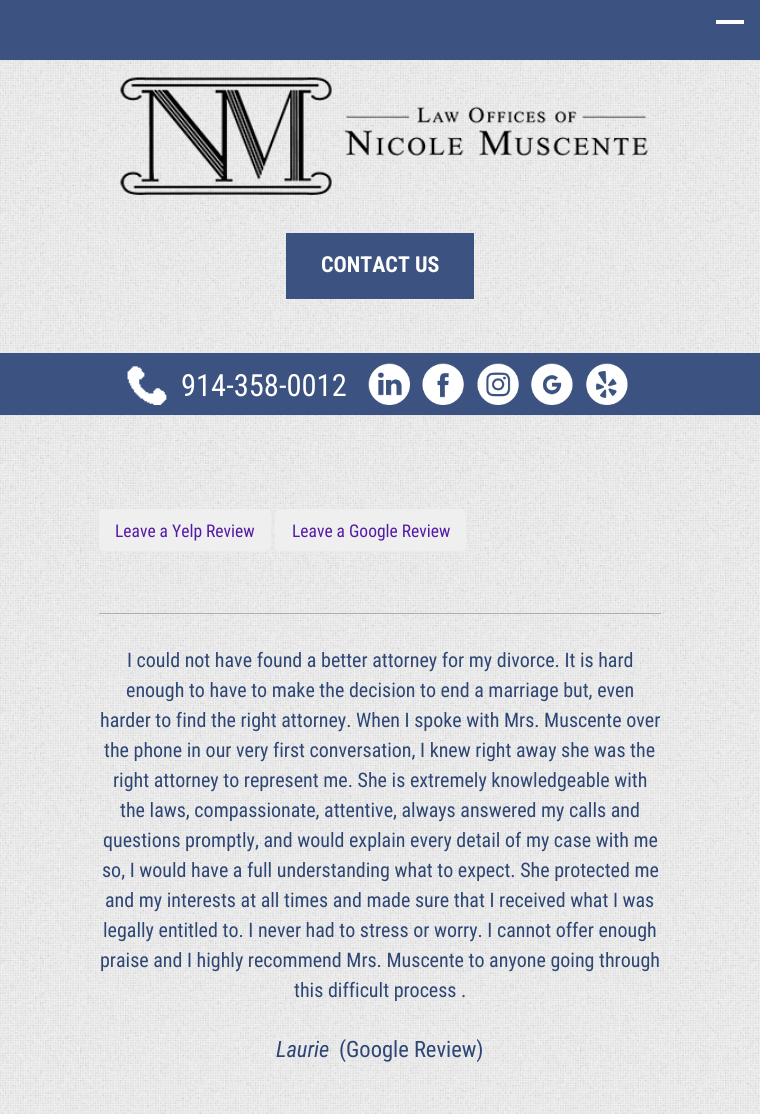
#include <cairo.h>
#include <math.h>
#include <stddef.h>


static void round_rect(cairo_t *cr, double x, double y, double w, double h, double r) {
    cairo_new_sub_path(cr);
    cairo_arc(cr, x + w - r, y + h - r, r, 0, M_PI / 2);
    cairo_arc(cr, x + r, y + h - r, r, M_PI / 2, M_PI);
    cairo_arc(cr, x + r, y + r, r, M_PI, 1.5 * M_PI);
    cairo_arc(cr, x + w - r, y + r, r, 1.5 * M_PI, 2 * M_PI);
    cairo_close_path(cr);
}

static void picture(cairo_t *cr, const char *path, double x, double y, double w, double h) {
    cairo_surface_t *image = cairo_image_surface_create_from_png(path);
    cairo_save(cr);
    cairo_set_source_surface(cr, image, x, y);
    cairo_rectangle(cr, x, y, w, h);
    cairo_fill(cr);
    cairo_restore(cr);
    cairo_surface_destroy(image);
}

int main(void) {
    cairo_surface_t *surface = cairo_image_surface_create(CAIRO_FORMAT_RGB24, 760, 1114);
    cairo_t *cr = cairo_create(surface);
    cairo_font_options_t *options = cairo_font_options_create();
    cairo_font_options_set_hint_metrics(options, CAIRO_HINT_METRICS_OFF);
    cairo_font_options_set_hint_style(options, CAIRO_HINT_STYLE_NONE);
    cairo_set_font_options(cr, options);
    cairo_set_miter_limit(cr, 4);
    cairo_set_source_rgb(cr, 1, 1, 1);
    cairo_paint(cr);
    picture(cr, "img1.png", 0, 60, 760, 1054);
    cairo_set_source_rgb(cr, 0.235, 0.325, 0.506);
    cairo_rectangle(cr, 0, 0, 760, 60);
    cairo_fill(cr);
    cairo_set_source_rgb(cr, 1, 1, 1);
    cairo_rectangle(cr, 716, 20, 28, 4);
    cairo_fill(cr);
    picture(cr, "img2.png", 120, 77, 528, 118);
    cairo_set_source_rgb(cr, 0.235, 0.325, 0.506);
    cairo_rectangle(cr, 286, 233, 188, 66);
    cairo_fill(cr);
    cairo_select_font_face(cr, "Roboto Condensed", CAIRO_FONT_SLANT_NORMAL, CAIRO_FONT_WEIGHT_BOLD);
    cairo_set_font_size(cr, 22);
    cairo_set_source_rgb(cr, 1, 1, 1);
    cairo_move_to(cr, 321, 272);
    cairo_show_text(cr, "CONTACT US");
    cairo_set_source_rgb(cr, 0.235, 0.325, 0.506);
    cairo_rectangle(cr, 0, 353, 760, 62);
    cairo_fill(cr);
    picture(cr, "img3.png", 127, 366, 40, 39);
    cairo_select_font_face(cr, "Roboto Condensed", CAIRO_FONT_SLANT_NORMAL, CAIRO_FONT_WEIGHT_NORMAL);
    cairo_set_font_size(cr, 30.5);
    cairo_set_source_rgb(cr, 1, 1, 1);
    cairo_move_to(cr, 181, 396);
    cairo_show_text(cr, "914-358-0012");
    picture(cr, "img4.png", 368, 363, 42, 42);
    picture(cr, "img5.png", 422, 363, 42, 42);
    picture(cr, "img6.png", 477, 363, 42, 42);
    picture(cr, "img7.png", 531, 363, 42, 42);
    picture(cr, "img8.png", 586, 363, 42, 42);
    cairo_set_source_rgb(cr, 0.937, 0.937, 0.937);
    round_rect(cr, 99, 509, 172, 42, 5);
    cairo_fill(cr);
    cairo_set_font_size(cr, 17.5);
    cairo_set_source_rgb(cr, 0.333, 0.102, 0.643);
    cairo_move_to(cr, 115, 537);
    cairo_show_text(cr, "Leave a Yelp Review");
    cairo_set_source_rgb(cr, 0.937, 0.937, 0.937);
    round_rect(cr, 275, 509, 191, 42, 5);
    cairo_fill(cr);
    cairo_set_source_rgb(cr, 0.333, 0.102, 0.643);
    cairo_move_to(cr, 292, 537);
    cairo_show_text(cr, "Leave a Google Review");
    cairo_set_source_rgb(cr, 0.682, 0.682, 0.682);
    cairo_rectangle(cr, 99, 613, 562, 1);
    cairo_fill(cr);
    cairo_set_font_size(cr, 20);
    cairo_set_source_rgb(cr, 0.18, 0.275, 0.455);
    cairo_move_to(cr, 127, 667);
    cairo_show_text(cr, "I could not have found a better attorney for my divorce. It is hard");
    cairo_move_to(cr, 126, 697);
    cairo_show_text(cr, "enough to have to make the decision to end a marriage but, even");
    cairo_move_to(cr, 100, 727);
    cairo_show_text(cr, "harder to find the right attorney. When I spoke with Mrs. Muscente over");
    cairo_move_to(cr, 104, 757);
    cairo_show_text(cr, "the phone in our very first conversation, I knew right away she was the");
    cairo_move_to(cr, 113, 787);
    cairo_show_text(cr, "right attorney to represent me. She is extremely knowledgeable with");
    cairo_move_to(cr, 120, 817);
    cairo_show_text(cr, "the laws, compassionate, attentive, always answered my calls and");
    cairo_move_to(cr, 103, 847);
    cairo_show_text(cr, "questions promptly, and would explain every detail of my case with me");
    cairo_move_to(cr, 102, 877);
    cairo_show_text(cr, "so, I would have a full understanding what to expect. She protected me");
    cairo_move_to(cr, 105, 907);
    cairo_show_text(cr, "and my interests at all times and made sure that I received what I was");
    cairo_move_to(cr, 103, 937);
    cairo_show_text(cr, "legally entitled to. I never had to stress or worry. I cannot offer enough");
    cairo_move_to(cr, 100, 967);
    cairo_show_text(cr, "praise and I highly recommend Mrs. Muscente to anyone going through");
    cairo_move_to(cr, 294, 997);
    cairo_show_text(cr, "this difficult process .");
    cairo_select_font_face(cr, "Roboto Condensed", CAIRO_FONT_SLANT_ITALIC, CAIRO_FONT_WEIGHT_NORMAL);
    cairo_set_font_size(cr, 22.5);
    cairo_move_to(cr, 276, 1057);
    cairo_show_text(cr, "Laurie");
    cairo_select_font_face(cr, "Roboto Condensed", CAIRO_FONT_SLANT_NORMAL, CAIRO_FONT_WEIGHT_NORMAL);
    cairo_move_to(cr, 339, 1057);
    cairo_show_text(cr, "(Google Review)");
    cairo_surface_write_to_png(surface, "page.png");
    cairo_font_options_destroy(options);
    cairo_destroy(cr);
    cairo_surface_destroy(surface);
    return 0;
}
